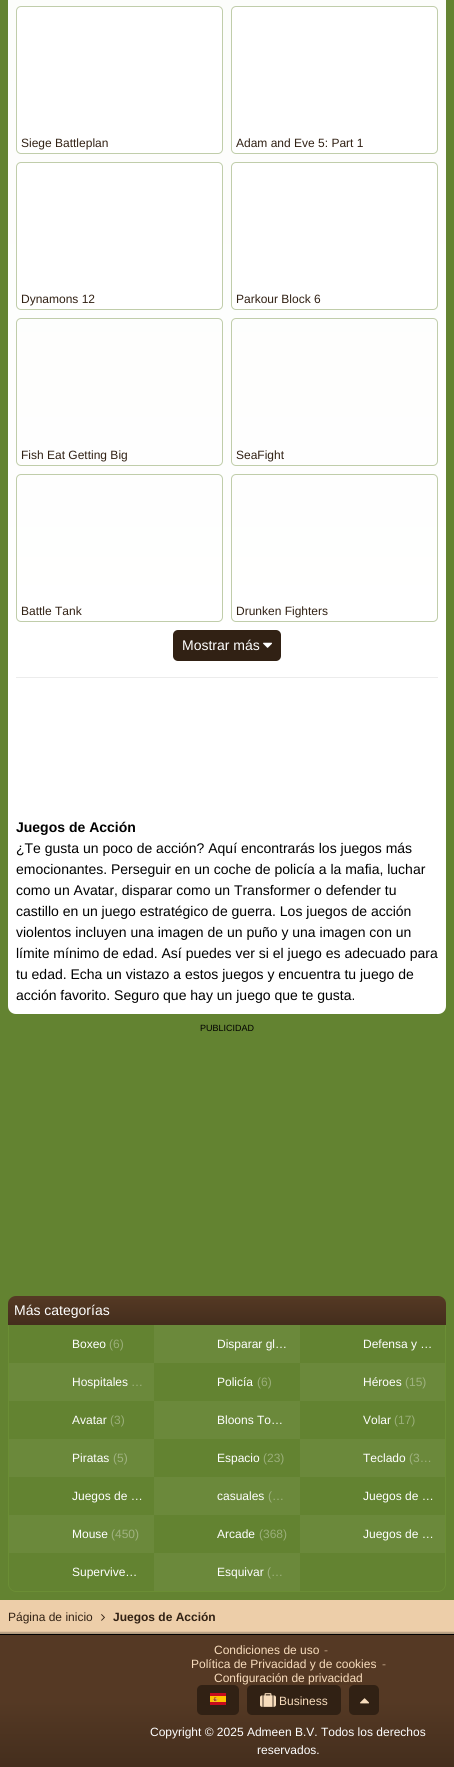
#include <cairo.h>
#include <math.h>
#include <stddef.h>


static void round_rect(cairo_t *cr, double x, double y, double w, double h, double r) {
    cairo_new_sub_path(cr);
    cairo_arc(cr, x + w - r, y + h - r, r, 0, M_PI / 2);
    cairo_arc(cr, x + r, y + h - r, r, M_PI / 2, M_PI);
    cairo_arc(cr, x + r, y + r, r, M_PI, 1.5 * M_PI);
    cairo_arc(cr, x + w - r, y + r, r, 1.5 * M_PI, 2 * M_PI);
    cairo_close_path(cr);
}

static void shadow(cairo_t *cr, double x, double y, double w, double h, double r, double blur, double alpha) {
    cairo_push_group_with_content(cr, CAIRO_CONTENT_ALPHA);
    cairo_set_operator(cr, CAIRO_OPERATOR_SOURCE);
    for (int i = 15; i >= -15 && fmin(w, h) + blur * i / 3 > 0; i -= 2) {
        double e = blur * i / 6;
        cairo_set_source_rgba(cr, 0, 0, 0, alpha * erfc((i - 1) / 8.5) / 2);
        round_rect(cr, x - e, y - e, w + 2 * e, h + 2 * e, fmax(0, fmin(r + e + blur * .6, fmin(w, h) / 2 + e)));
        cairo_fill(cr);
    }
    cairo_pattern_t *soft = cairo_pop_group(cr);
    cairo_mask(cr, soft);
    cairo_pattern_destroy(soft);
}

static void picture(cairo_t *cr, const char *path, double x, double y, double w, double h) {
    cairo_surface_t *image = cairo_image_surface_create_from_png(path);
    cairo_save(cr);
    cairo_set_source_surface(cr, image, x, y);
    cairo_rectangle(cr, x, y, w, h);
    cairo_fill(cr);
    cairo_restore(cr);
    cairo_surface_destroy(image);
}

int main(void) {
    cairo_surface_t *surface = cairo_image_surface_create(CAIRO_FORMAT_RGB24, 454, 1767);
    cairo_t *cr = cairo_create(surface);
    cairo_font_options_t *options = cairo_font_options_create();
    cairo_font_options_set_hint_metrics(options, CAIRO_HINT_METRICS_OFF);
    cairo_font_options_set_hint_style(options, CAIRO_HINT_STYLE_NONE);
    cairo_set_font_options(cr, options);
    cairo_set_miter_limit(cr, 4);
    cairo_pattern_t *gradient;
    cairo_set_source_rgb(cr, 0.388, 0.514, 0.192);
    cairo_paint(cr);
    gradient = cairo_pattern_create_linear(227, -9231, 227, 669);
    cairo_pattern_add_color_stop_rgba(gradient, 0, 0.827, 0.863, 0.769, 1);
    cairo_pattern_add_color_stop_rgba(gradient, 1, 1, 1, 1, 1);
    cairo_set_source(cr, gradient);
    cairo_pattern_destroy(gradient);
    cairo_rectangle(cr, 8, 0, 438, 669);
    cairo_fill(cr);
    cairo_set_source_rgb(cr, 1, 1, 1);
    round_rect(cr, 16.5, 6.5, 206, 147, 4.5);
    cairo_fill_preserve(cr);
    cairo_set_source_rgb(cr, 0.753, 0.804, 0.667);
    cairo_set_line_width(cr, 1);
    cairo_stroke(cr);
    cairo_select_font_face(cr, "Liberation Sans", CAIRO_FONT_SLANT_NORMAL, CAIRO_FONT_WEIGHT_NORMAL);
    cairo_set_font_size(cr, 12);
    cairo_set_source_rgb(cr, 0.192, 0.129, 0.082);
    cairo_move_to(cr, 21, 147);
    cairo_show_text(cr, "Siege Battleplan");
    cairo_set_source_rgb(cr, 1, 1, 1);
    round_rect(cr, 231.5, 6.5, 206, 147, 4.5);
    cairo_fill_preserve(cr);
    cairo_set_source_rgb(cr, 0.753, 0.804, 0.667);
    cairo_stroke(cr);
    cairo_set_source_rgb(cr, 0.192, 0.129, 0.082);
    cairo_move_to(cr, 236, 147);
    cairo_show_text(cr, "Adam and Eve 5: Part 1");
    cairo_set_source_rgb(cr, 1, 1, 1);
    round_rect(cr, 16.5, 162.5, 206, 147, 4.5);
    cairo_fill_preserve(cr);
    cairo_set_source_rgb(cr, 0.753, 0.804, 0.667);
    cairo_stroke(cr);
    cairo_set_source_rgb(cr, 0.192, 0.129, 0.082);
    cairo_move_to(cr, 21, 303);
    cairo_show_text(cr, "Dynamons 12");
    cairo_set_source_rgb(cr, 1, 1, 1);
    round_rect(cr, 231.5, 162.5, 206, 147, 4.5);
    cairo_fill_preserve(cr);
    cairo_set_source_rgb(cr, 0.753, 0.804, 0.667);
    cairo_stroke(cr);
    cairo_set_source_rgb(cr, 0.192, 0.129, 0.082);
    cairo_move_to(cr, 236, 303);
    cairo_show_text(cr, "Parkour Block 6");
    round_rect(cr, 16.5, 318.5, 206, 147, 4.5);
    cairo_set_source_rgb(cr, 0.753, 0.804, 0.667);
    cairo_stroke(cr);
    cairo_set_source_rgb(cr, 0.192, 0.129, 0.082);
    cairo_move_to(cr, 21, 459);
    cairo_show_text(cr, "Fish Eat Getting Big");
    round_rect(cr, 231.5, 318.5, 206, 147, 4.5);
    cairo_set_source_rgb(cr, 0.753, 0.804, 0.667);
    cairo_stroke(cr);
    cairo_set_source_rgb(cr, 0.192, 0.129, 0.082);
    cairo_move_to(cr, 236, 459);
    cairo_show_text(cr, "SeaFight");
    round_rect(cr, 16.5, 474.5, 206, 147, 4.5);
    cairo_set_source_rgb(cr, 0.753, 0.804, 0.667);
    cairo_stroke(cr);
    cairo_set_source_rgb(cr, 0.192, 0.129, 0.082);
    cairo_move_to(cr, 21, 615);
    cairo_show_text(cr, "Battle Tank");
    round_rect(cr, 231.5, 474.5, 206, 147, 4.5);
    cairo_set_source_rgb(cr, 0.753, 0.804, 0.667);
    cairo_stroke(cr);
    cairo_set_source_rgb(cr, 0.192, 0.129, 0.082);
    cairo_move_to(cr, 236, 615);
    cairo_show_text(cr, "Drunken Fighters");
    round_rect(cr, 173, 630, 108, 31, 5);
    cairo_fill(cr);
    cairo_set_font_size(cr, 14);
    cairo_set_source_rgb(cr, 1, 1, 1);
    cairo_move_to(cr, 182, 650);
    cairo_show_text(cr, "Mostrar más");
    picture(cr, "img1.png", 263, 642, 9, 6);
    cairo_new_path(cr);
    cairo_move_to(cr, 8, 669);
    cairo_line_to(cr, 446, 669);
    cairo_line_to(cr, 446, 1006);
    cairo_curve_to(cr, 446, 1010.5, 442.5, 1014, 438, 1014);
    cairo_line_to(cr, 16, 1014);
    cairo_curve_to(cr, 11.5, 1014, 8, 1010.5, 8, 1006);
    cairo_close_path(cr);
    cairo_fill(cr);
    cairo_set_source_rgb(cr, 0.922, 0.922, 0.922);
    cairo_rectangle(cr, 16, 677, 422, 1);
    cairo_fill(cr);
    cairo_select_font_face(cr, "Liberation Sans", CAIRO_FONT_SLANT_NORMAL, CAIRO_FONT_WEIGHT_BOLD);
    cairo_set_source_rgb(cr, 0, 0, 0);
    cairo_move_to(cr, 16, 832);
    cairo_show_text(cr, "Juegos de Acción");
    cairo_select_font_face(cr, "Liberation Sans", CAIRO_FONT_SLANT_NORMAL, CAIRO_FONT_WEIGHT_NORMAL);
    cairo_move_to(cr, 16, 853);
    cairo_show_text(cr, "¿Te gusta un poco de acción? Aquí encontrarás los juegos más");
    cairo_move_to(cr, 16, 874);
    cairo_show_text(cr, "emocionantes. Perseguir en un coche de policía a la mafia, luchar");
    cairo_move_to(cr, 16, 895);
    cairo_show_text(cr, "como un Avatar, disparar como un Transformer o defender tu");
    cairo_move_to(cr, 16, 916);
    cairo_show_text(cr, "castillo en un juego estratégico de guerra. Los juegos de acción");
    cairo_move_to(cr, 16, 937);
    cairo_show_text(cr, "violentos incluyen una imagen de un puño y una imagen con un");
    cairo_move_to(cr, 16, 958);
    cairo_show_text(cr, "límite mínimo de edad. Así puedes ver si el juego es adecuado para");
    cairo_move_to(cr, 16, 979);
    cairo_show_text(cr, "tu edad. Echa un vistazo a estos juegos y encuentra tu juego de");
    cairo_move_to(cr, 16, 1000);
    cairo_show_text(cr, "acción favorito. Seguro que hay un juego que te gusta.");
    cairo_set_font_size(cr, 9);
    cairo_move_to(cr, 200, 1031);
    cairo_show_text(cr, "PUBLICIDAD");
    cairo_set_source_rgb(cr, 0.333, 0.224, 0.141);
    cairo_new_path(cr);
    cairo_move_to(cr, 16, 1296);
    cairo_line_to(cr, 438, 1296);
    cairo_curve_to(cr, 442.5, 1296, 446, 1299.5, 446, 1304);
    cairo_line_to(cr, 446, 1325);
    cairo_line_to(cr, 8, 1325);
    cairo_line_to(cr, 8, 1304);
    cairo_curve_to(cr, 8, 1299.5, 11.5, 1296, 16, 1296);
    cairo_close_path(cr);
    cairo_fill(cr);
    gradient = cairo_pattern_create_linear(227, 1296, 227, 1325);
    cairo_pattern_add_color_stop_rgba(gradient, 0, 0, 0, 0, 0);
    cairo_pattern_add_color_stop_rgba(gradient, 1, 0, 0, 0, 0.2);
    cairo_set_source(cr, gradient);
    cairo_pattern_destroy(gradient);
    cairo_rectangle(cr, 8, 1299, 438, 26);
    cairo_fill(cr);
    cairo_set_font_size(cr, 14);
    cairo_set_source_rgb(cr, 1, 1, 1);
    cairo_move_to(cr, 14, 1315);
    cairo_show_text(cr, "Más categorías");
    cairo_set_source_rgb(cr, 0.42, 0.557, 0.208);
    cairo_set_fill_rule(cr, CAIRO_FILL_RULE_EVEN_ODD);
    cairo_new_path(cr);
    cairo_move_to(cr, 8, 1325);
    cairo_line_to(cr, 446, 1325);
    cairo_line_to(cr, 446, 1584);
    cairo_curve_to(cr, 446, 1588, 442, 1592, 438, 1592);
    cairo_line_to(cr, 16, 1592);
    cairo_curve_to(cr, 12, 1592, 8, 1588, 8, 1584);
    cairo_close_path(cr);
    cairo_move_to(cr, 9, 1325);
    cairo_line_to(cr, 445, 1325);
    cairo_line_to(cr, 445, 1584);
    cairo_curve_to(cr, 445, 1588, 442, 1591, 438, 1591);
    cairo_line_to(cr, 16, 1591);
    cairo_curve_to(cr, 12, 1591, 9, 1588, 9, 1584);
    cairo_close_path(cr);
    cairo_fill(cr);
    cairo_set_font_size(cr, 12);
    cairo_set_source_rgb(cr, 1, 1, 1);
    cairo_move_to(cr, 72, 1348);
    cairo_show_text(cr, "Boxeo");
    cairo_set_source_rgb(cr, 0.604, 0.682, 0.475);
    cairo_move_to(cr, 109, 1348);
    cairo_show_text(cr, "(6)");
    cairo_set_source_rgb(cr, 0.42, 0.537, 0.231);
    cairo_rectangle(cr, 154, 1325, 146, 38);
    cairo_fill(cr);
    cairo_set_source_rgb(cr, 1, 1, 1);
    cairo_move_to(cr, 217, 1348);
    cairo_show_text(cr, "Disparar gl…");
    cairo_move_to(cr, 363, 1348);
    cairo_show_text(cr, "Defensa y …");
    cairo_set_source_rgb(cr, 0.42, 0.537, 0.231);
    cairo_rectangle(cr, 9, 1363, 145, 38);
    cairo_fill(cr);
    cairo_set_source_rgb(cr, 1, 1, 1);
    cairo_move_to(cr, 72, 1386);
    cairo_show_text(cr, "Hospitales");
    cairo_set_source_rgb(cr, 0.624, 0.698, 0.502);
    cairo_move_to(cr, 131, 1386);
    cairo_show_text(cr, "…");
    cairo_set_source_rgb(cr, 1, 1, 1);
    cairo_move_to(cr, 217, 1386);
    cairo_show_text(cr, "Policía");
    cairo_set_source_rgb(cr, 0.604, 0.682, 0.475);
    cairo_move_to(cr, 257, 1386);
    cairo_show_text(cr, "(6)");
    cairo_set_source_rgb(cr, 0.42, 0.537, 0.231);
    cairo_rectangle(cr, 300, 1363, 145, 38);
    cairo_fill(cr);
    cairo_set_source_rgb(cr, 1, 1, 1);
    cairo_move_to(cr, 363, 1386);
    cairo_show_text(cr, "Héroes");
    cairo_set_source_rgb(cr, 0.624, 0.698, 0.502);
    cairo_move_to(cr, 405, 1386);
    cairo_show_text(cr, "(15)");
    cairo_set_source_rgb(cr, 1, 1, 1);
    cairo_move_to(cr, 72, 1424);
    cairo_show_text(cr, "Avatar");
    cairo_set_source_rgb(cr, 0.604, 0.682, 0.475);
    cairo_move_to(cr, 110, 1424);
    cairo_show_text(cr, "(3)");
    cairo_set_source_rgb(cr, 0.42, 0.537, 0.231);
    cairo_rectangle(cr, 154, 1401, 146, 38);
    cairo_fill(cr);
    cairo_set_source_rgb(cr, 1, 1, 1);
    cairo_move_to(cr, 217, 1424);
    cairo_show_text(cr, "Bloons To…");
    cairo_move_to(cr, 363, 1424);
    cairo_show_text(cr, "Volar");
    cairo_set_source_rgb(cr, 0.604, 0.682, 0.475);
    cairo_move_to(cr, 394, 1424);
    cairo_show_text(cr, "(17)");
    cairo_set_source_rgb(cr, 0.42, 0.537, 0.231);
    cairo_rectangle(cr, 9, 1439, 145, 38);
    cairo_fill(cr);
    cairo_set_source_rgb(cr, 1, 1, 1);
    cairo_move_to(cr, 72, 1462);
    cairo_show_text(cr, "Piratas");
    cairo_set_source_rgb(cr, 0.624, 0.698, 0.502);
    cairo_move_to(cr, 113, 1462);
    cairo_show_text(cr, "(5)");
    cairo_set_source_rgb(cr, 1, 1, 1);
    cairo_move_to(cr, 217, 1462);
    cairo_show_text(cr, "Espacio");
    cairo_set_source_rgb(cr, 0.604, 0.682, 0.475);
    cairo_move_to(cr, 263, 1462);
    cairo_show_text(cr, "(23)");
    cairo_set_source_rgb(cr, 0.42, 0.537, 0.231);
    cairo_rectangle(cr, 300, 1439, 145, 38);
    cairo_fill(cr);
    cairo_set_source_rgb(cr, 1, 1, 1);
    cairo_move_to(cr, 363, 1462);
    cairo_show_text(cr, "Teclado");
    cairo_set_source_rgb(cr, 0.624, 0.698, 0.502);
    cairo_move_to(cr, 409, 1462);
    cairo_show_text(cr, "(3…");
    cairo_set_source_rgb(cr, 1, 1, 1);
    cairo_move_to(cr, 72, 1500);
    cairo_show_text(cr, "Juegos de …");
    cairo_set_source_rgb(cr, 0.42, 0.537, 0.231);
    cairo_rectangle(cr, 154, 1477, 146, 38);
    cairo_fill(cr);
    cairo_set_source_rgb(cr, 1, 1, 1);
    cairo_move_to(cr, 217, 1500);
    cairo_show_text(cr, "casuales");
    cairo_set_source_rgb(cr, 0.624, 0.698, 0.502);
    cairo_move_to(cr, 268, 1500);
    cairo_show_text(cr, "(…");
    cairo_set_source_rgb(cr, 1, 1, 1);
    cairo_move_to(cr, 363, 1500);
    cairo_show_text(cr, "Juegos de …");
    cairo_set_source_rgb(cr, 0.42, 0.537, 0.231);
    cairo_rectangle(cr, 9, 1515, 145, 38);
    cairo_fill(cr);
    cairo_set_source_rgb(cr, 1, 1, 1);
    cairo_move_to(cr, 72, 1538);
    cairo_show_text(cr, "Mouse");
    cairo_set_source_rgb(cr, 0.624, 0.698, 0.502);
    cairo_move_to(cr, 111, 1538);
    cairo_show_text(cr, "(450)");
    cairo_set_source_rgb(cr, 1, 1, 1);
    cairo_move_to(cr, 217, 1538);
    cairo_show_text(cr, "Arcade");
    cairo_set_source_rgb(cr, 0.604, 0.682, 0.475);
    cairo_move_to(cr, 259, 1538);
    cairo_show_text(cr, "(368)");
    cairo_set_source_rgb(cr, 0.42, 0.537, 0.231);
    cairo_rectangle(cr, 300, 1515, 145, 38);
    cairo_fill(cr);
    cairo_set_source_rgb(cr, 1, 1, 1);
    cairo_move_to(cr, 363, 1538);
    cairo_show_text(cr, "Juegos de …");
    cairo_move_to(cr, 72, 1576);
    cairo_show_text(cr, "Supervive…");
    cairo_set_source_rgb(cr, 0.42, 0.537, 0.231);
    cairo_rectangle(cr, 154, 1553, 146, 38);
    cairo_fill(cr);
    cairo_set_source_rgb(cr, 1, 1, 1);
    cairo_move_to(cr, 217, 1576);
    cairo_show_text(cr, "Esquivar");
    cairo_set_source_rgb(cr, 0.624, 0.698, 0.502);
    cairo_move_to(cr, 267, 1576);
    cairo_show_text(cr, "(…");
    cairo_set_source_rgb(cr, 0.929, 0.808, 0.663);
    cairo_rectangle(cr, 0, 1600, 454, 34);
    cairo_fill(cr);
    cairo_set_source_rgb(cr, 0.192, 0.129, 0.082);
    cairo_move_to(cr, 8, 1621);
    cairo_show_text(cr, "Página de inicio");
    picture(cr, "img2.png", 101, 1614, 4, 7);
    cairo_select_font_face(cr, "Liberation Sans", CAIRO_FONT_SLANT_NORMAL, CAIRO_FONT_WEIGHT_BOLD);
    cairo_move_to(cr, 113, 1621);
    cairo_show_text(cr, "Juegos de Acción");
    cairo_set_source_rgb(cr, 0, 0, 0);
    shadow(cr, -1, 1632, 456, 135, 0, 0.5, 0.25);
    gradient = cairo_pattern_create_linear(227, 1635, 227, 1767);
    cairo_pattern_add_color_stop_rgba(gradient, 0.5, 0.333, 0.224, 0.141, 1);
    cairo_pattern_add_color_stop_rgba(gradient, 1, 0.267, 0.18, 0.114, 1);
    cairo_set_source(cr, gradient);
    cairo_pattern_destroy(gradient);
    cairo_rectangle(cr, 0, 1635, 454, 132);
    cairo_fill(cr);
    cairo_set_source_rgb(cr, 0, 0, 0);
    cairo_rectangle(cr, 0, 1634, 454, 1);
    cairo_fill(cr);
    cairo_select_font_face(cr, "Liberation Sans", CAIRO_FONT_SLANT_NORMAL, CAIRO_FONT_WEIGHT_NORMAL);
    cairo_set_source_rgb(cr, 0.969, 0.863, 0.737);
    cairo_move_to(cr, 214, 1654);
    cairo_show_text(cr, "Condiciones de uso");
    cairo_set_source_rgb(cr, 0.714, 0.608, 0.498);
    cairo_move_to(cr, 324, 1654);
    cairo_show_text(cr, "-");
    cairo_set_source_rgb(cr, 0.969, 0.863, 0.737);
    cairo_move_to(cr, 191, 1668);
    cairo_show_text(cr, "Política de Privacidad y de cookies");
    cairo_set_source_rgb(cr, 0.714, 0.608, 0.498);
    cairo_move_to(cr, 382, 1668);
    cairo_show_text(cr, "-");
    cairo_set_source_rgb(cr, 0.969, 0.863, 0.737);
    cairo_move_to(cr, 214, 1682);
    cairo_show_text(cr, "Configuración de privacidad");
    cairo_set_source_rgb(cr, 0.192, 0.129, 0.082);
    round_rect(cr, 197, 1685, 42, 30, 5);
    cairo_fill(cr);
    picture(cr, "img3.png", 210, 1693, 16, 12);
    round_rect(cr, 247, 1685, 94, 30, 5);
    cairo_fill(cr);
    picture(cr, "img4.png", 260, 1693, 16, 14);
    cairo_set_source_rgb(cr, 0.969, 0.863, 0.737);
    cairo_move_to(cr, 279, 1705);
    cairo_show_text(cr, "Business");
    cairo_set_source_rgb(cr, 0.192, 0.129, 0.082);
    round_rect(cr, 349, 1685, 30, 30, 5);
    cairo_fill(cr);
    picture(cr, "img5.png", 360, 1698, 9, 6);
    cairo_set_source_rgb(cr, 1, 1, 1);
    cairo_move_to(cr, 150, 1736);
    cairo_show_text(cr, "Copyright © 2025 Admeen B.V. Todos los derechos");
    cairo_move_to(cr, 257, 1754);
    cairo_show_text(cr, "reservados.");
    cairo_surface_write_to_png(surface, "page.png");
    cairo_font_options_destroy(options);
    cairo_destroy(cr);
    cairo_surface_destroy(surface);
    return 0;
}
